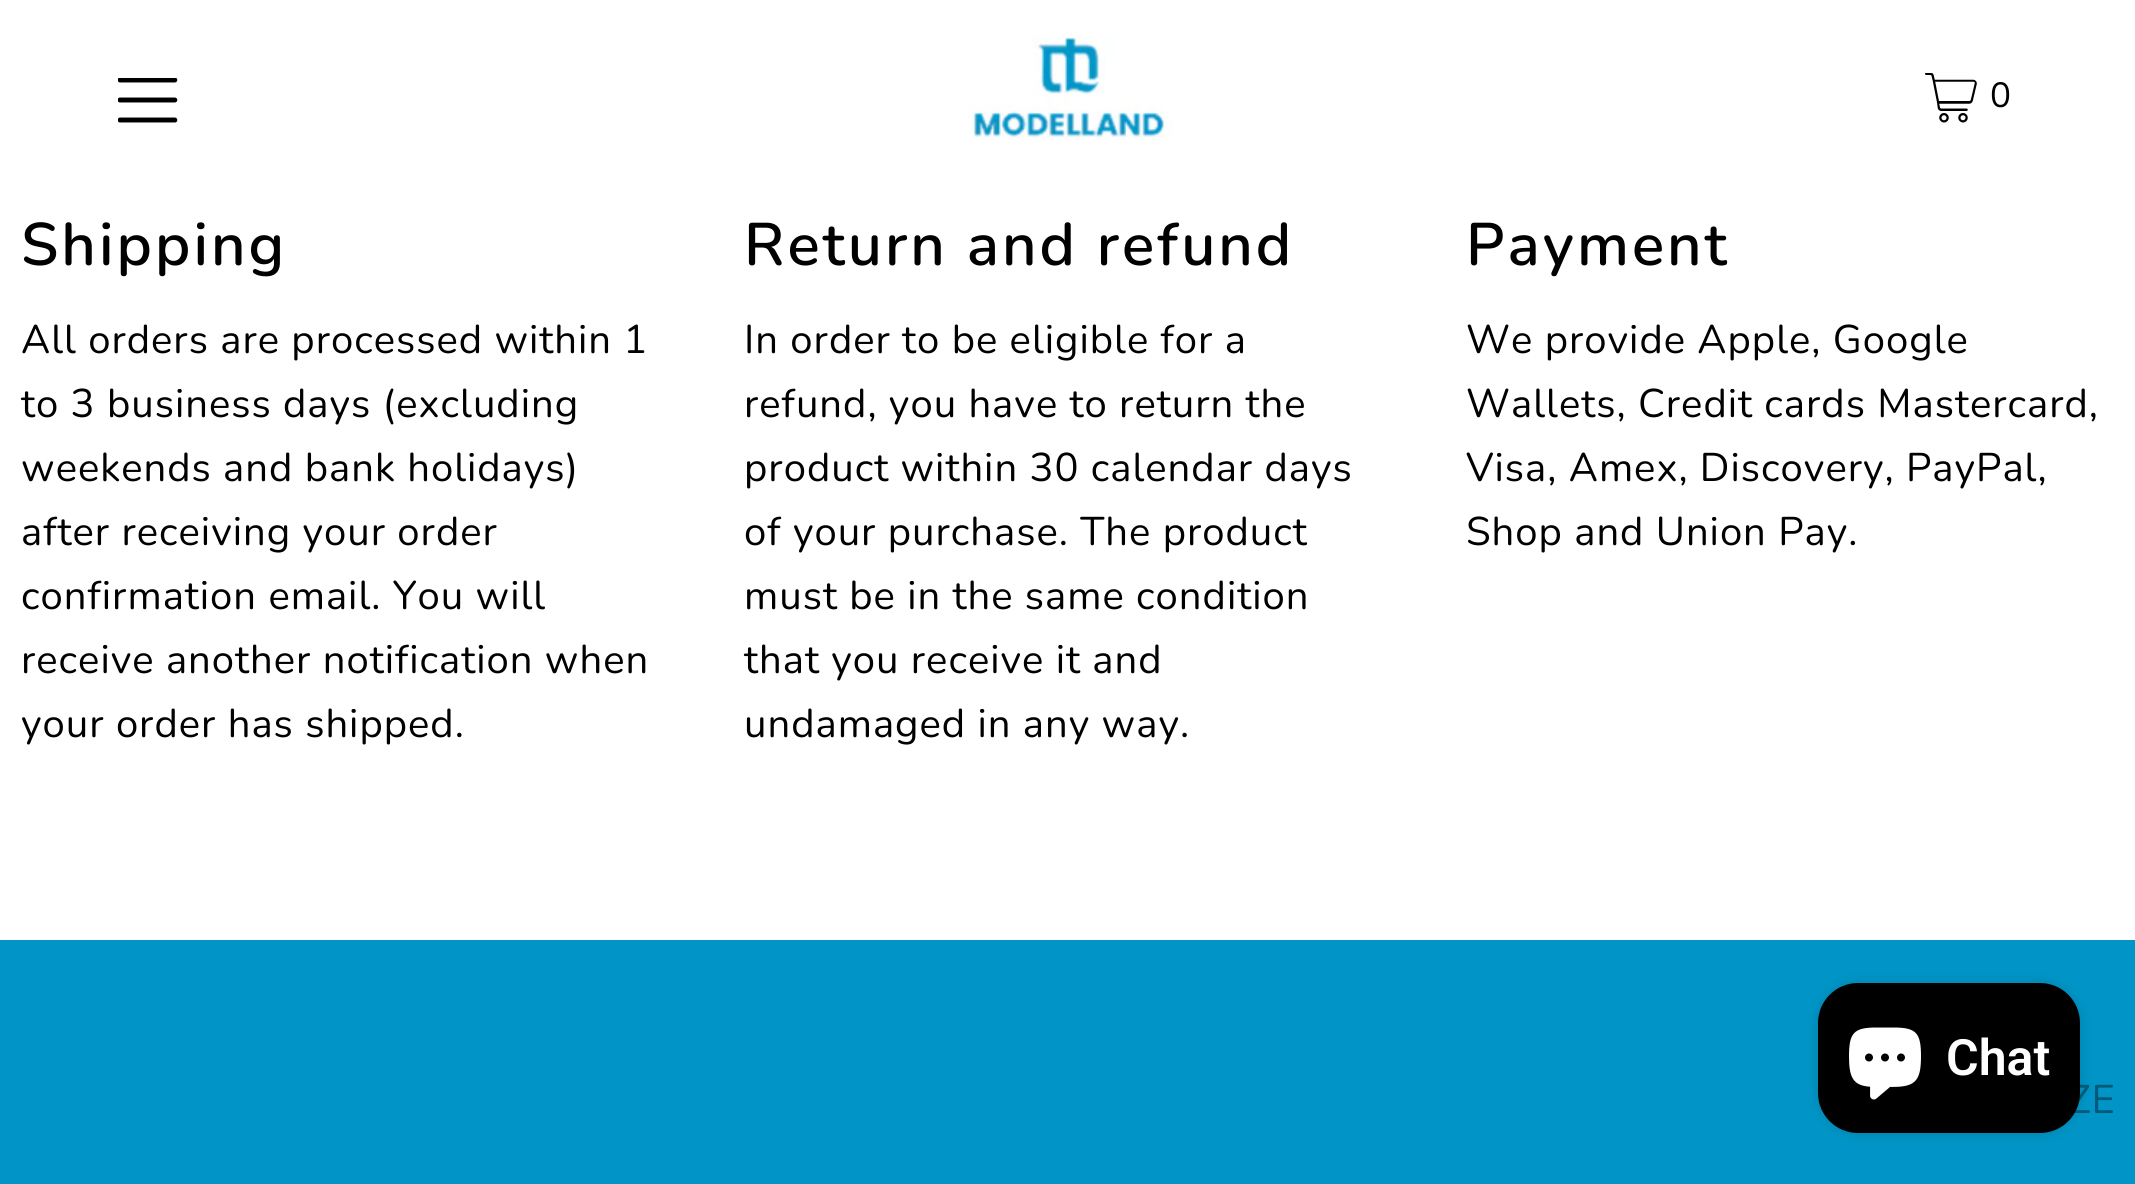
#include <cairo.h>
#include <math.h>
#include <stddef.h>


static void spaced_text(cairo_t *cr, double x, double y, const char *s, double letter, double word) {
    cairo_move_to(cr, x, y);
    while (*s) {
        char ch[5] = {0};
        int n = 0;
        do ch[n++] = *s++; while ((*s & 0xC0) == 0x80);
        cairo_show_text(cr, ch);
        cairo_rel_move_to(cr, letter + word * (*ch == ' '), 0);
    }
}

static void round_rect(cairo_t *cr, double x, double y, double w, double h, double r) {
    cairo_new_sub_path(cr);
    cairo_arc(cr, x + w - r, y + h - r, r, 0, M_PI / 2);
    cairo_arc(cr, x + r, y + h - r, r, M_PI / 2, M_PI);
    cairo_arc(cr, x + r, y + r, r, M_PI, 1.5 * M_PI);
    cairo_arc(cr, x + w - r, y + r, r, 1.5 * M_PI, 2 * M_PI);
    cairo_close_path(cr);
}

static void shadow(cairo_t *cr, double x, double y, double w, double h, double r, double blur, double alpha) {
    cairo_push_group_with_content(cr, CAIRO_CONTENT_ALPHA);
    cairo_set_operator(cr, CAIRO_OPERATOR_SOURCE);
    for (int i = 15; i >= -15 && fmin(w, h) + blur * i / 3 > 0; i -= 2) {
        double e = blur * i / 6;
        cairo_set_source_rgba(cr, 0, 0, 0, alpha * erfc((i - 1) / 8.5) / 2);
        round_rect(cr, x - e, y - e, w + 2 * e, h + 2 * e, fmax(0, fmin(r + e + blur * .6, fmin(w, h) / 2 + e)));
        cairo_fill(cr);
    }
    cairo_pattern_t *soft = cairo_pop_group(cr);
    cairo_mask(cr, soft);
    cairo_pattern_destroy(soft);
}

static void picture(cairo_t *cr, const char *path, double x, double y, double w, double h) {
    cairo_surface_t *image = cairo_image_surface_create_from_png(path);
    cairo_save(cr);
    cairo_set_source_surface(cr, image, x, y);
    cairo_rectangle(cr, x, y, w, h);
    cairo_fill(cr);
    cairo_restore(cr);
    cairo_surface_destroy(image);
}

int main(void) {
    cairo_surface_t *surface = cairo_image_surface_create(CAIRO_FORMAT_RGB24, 2135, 1184);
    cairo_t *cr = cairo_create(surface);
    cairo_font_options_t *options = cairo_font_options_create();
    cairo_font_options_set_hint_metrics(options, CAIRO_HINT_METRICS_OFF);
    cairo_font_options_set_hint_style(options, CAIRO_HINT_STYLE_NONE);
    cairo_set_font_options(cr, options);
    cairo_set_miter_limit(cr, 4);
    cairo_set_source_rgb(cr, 1, 1, 1);
    cairo_paint(cr);
    picture(cr, "img1.png", 118, 78, 60, 45);
    picture(cr, "img2.png", 967, 37, 206, 103);
    picture(cr, "img3.png", 1925, 73, 52, 50);
    cairo_select_font_face(cr, "Nunito", CAIRO_FONT_SLANT_NORMAL, CAIRO_FONT_WEIGHT_NORMAL);
    cairo_set_font_size(cr, 35);
    cairo_set_source_rgb(cr, 0, 0, 0);
    spaced_text(cr, 1990, 107, "0", 1, 0);
    cairo_select_font_face(cr, "Nunito SemiBold", CAIRO_FONT_SLANT_NORMAL, CAIRO_FONT_WEIGHT_NORMAL);
    cairo_set_font_size(cr, 60);
    spaced_text(cr, 21, 265, "Shipping", 3, 0);
    cairo_select_font_face(cr, "Nunito", CAIRO_FONT_SLANT_NORMAL, CAIRO_FONT_WEIGHT_NORMAL);
    cairo_set_font_size(cr, 40);
    spaced_text(cr, 21, 353, "All orders are processed within 1", 1, 0);
    spaced_text(cr, 21, 417, "to 3 business days (excluding", 1, 0);
    spaced_text(cr, 21, 481, "weekends and bank holidays)", 1, 0);
    spaced_text(cr, 21, 545, "after receiving your order", 1, 0);
    spaced_text(cr, 21, 609, "confirmation email. You will", 1, 0);
    spaced_text(cr, 21, 673, "receive another notification when", 1, 0);
    spaced_text(cr, 21, 737, "your order has shipped.", 1, 0);
    cairo_select_font_face(cr, "Nunito SemiBold", CAIRO_FONT_SLANT_NORMAL, CAIRO_FONT_WEIGHT_NORMAL);
    cairo_set_font_size(cr, 60);
    spaced_text(cr, 744, 265, "Return and refund", 3, 0);
    cairo_select_font_face(cr, "Nunito", CAIRO_FONT_SLANT_NORMAL, CAIRO_FONT_WEIGHT_NORMAL);
    cairo_set_font_size(cr, 40);
    spaced_text(cr, 744, 353, "In order to be eligible for a", 1, 0);
    spaced_text(cr, 744, 417, "refund, you have to return the", 1, 0);
    spaced_text(cr, 744, 481, "product within 30 calendar days", 1, 0);
    spaced_text(cr, 744, 545, "of your purchase. The product", 1, 0);
    spaced_text(cr, 744, 609, "must be in the same condition", 1, 0);
    spaced_text(cr, 744, 673, "that you receive it and", 1, 0);
    spaced_text(cr, 744, 737, "undamaged in any way.", 1, 0);
    cairo_select_font_face(cr, "Nunito SemiBold", CAIRO_FONT_SLANT_NORMAL, CAIRO_FONT_WEIGHT_NORMAL);
    cairo_set_font_size(cr, 60);
    spaced_text(cr, 1466, 265, "Payment", 3, 0);
    cairo_select_font_face(cr, "Nunito", CAIRO_FONT_SLANT_NORMAL, CAIRO_FONT_WEIGHT_NORMAL);
    cairo_set_font_size(cr, 40);
    spaced_text(cr, 1466, 353, "We provide Apple, Google", 1, 0);
    spaced_text(cr, 1466, 417, "Wallets, Credit cards Mastercard,", 1, 0);
    spaced_text(cr, 1466, 481, "Visa, Amex, Discovery, PayPal,", 1, 0);
    spaced_text(cr, 1466, 545, "Shop and Union Pay.", 1, 0);
    cairo_set_source_rgb(cr, 0, 0.584, 0.776);
    cairo_rectangle(cr, 0, 940, 2135, 244);
    cairo_fill(cr);
    cairo_set_source_rgb(cr, 0, 0, 0);
    shadow(cr, 1818, 983, 262, 150, 40, 6, 0.15);
    cairo_set_source_rgb(cr, 0, 0.349, 0.467);
    spaced_text(cr, 2067, 1113, "ZE", 1, 0);
    cairo_set_source_rgb(cr, 0, 0, 0);
    round_rect(cr, 1818, 983, 262, 150, 40);
    cairo_fill(cr);
    picture(cr, "img4.png", 1849, 1027, 72, 73);
    cairo_select_font_face(cr, "Roboto SemiBold", CAIRO_FONT_SLANT_NORMAL, CAIRO_FONT_WEIGHT_NORMAL);
    cairo_set_font_size(cr, 50);
    cairo_set_source_rgb(cr, 1, 1, 1);
    cairo_move_to(cr, 1946, 1075);
    cairo_show_text(cr, "Chat");
    cairo_surface_write_to_png(surface, "page.png");
    cairo_font_options_destroy(options);
    cairo_destroy(cr);
    cairo_surface_destroy(surface);
    return 0;
}
